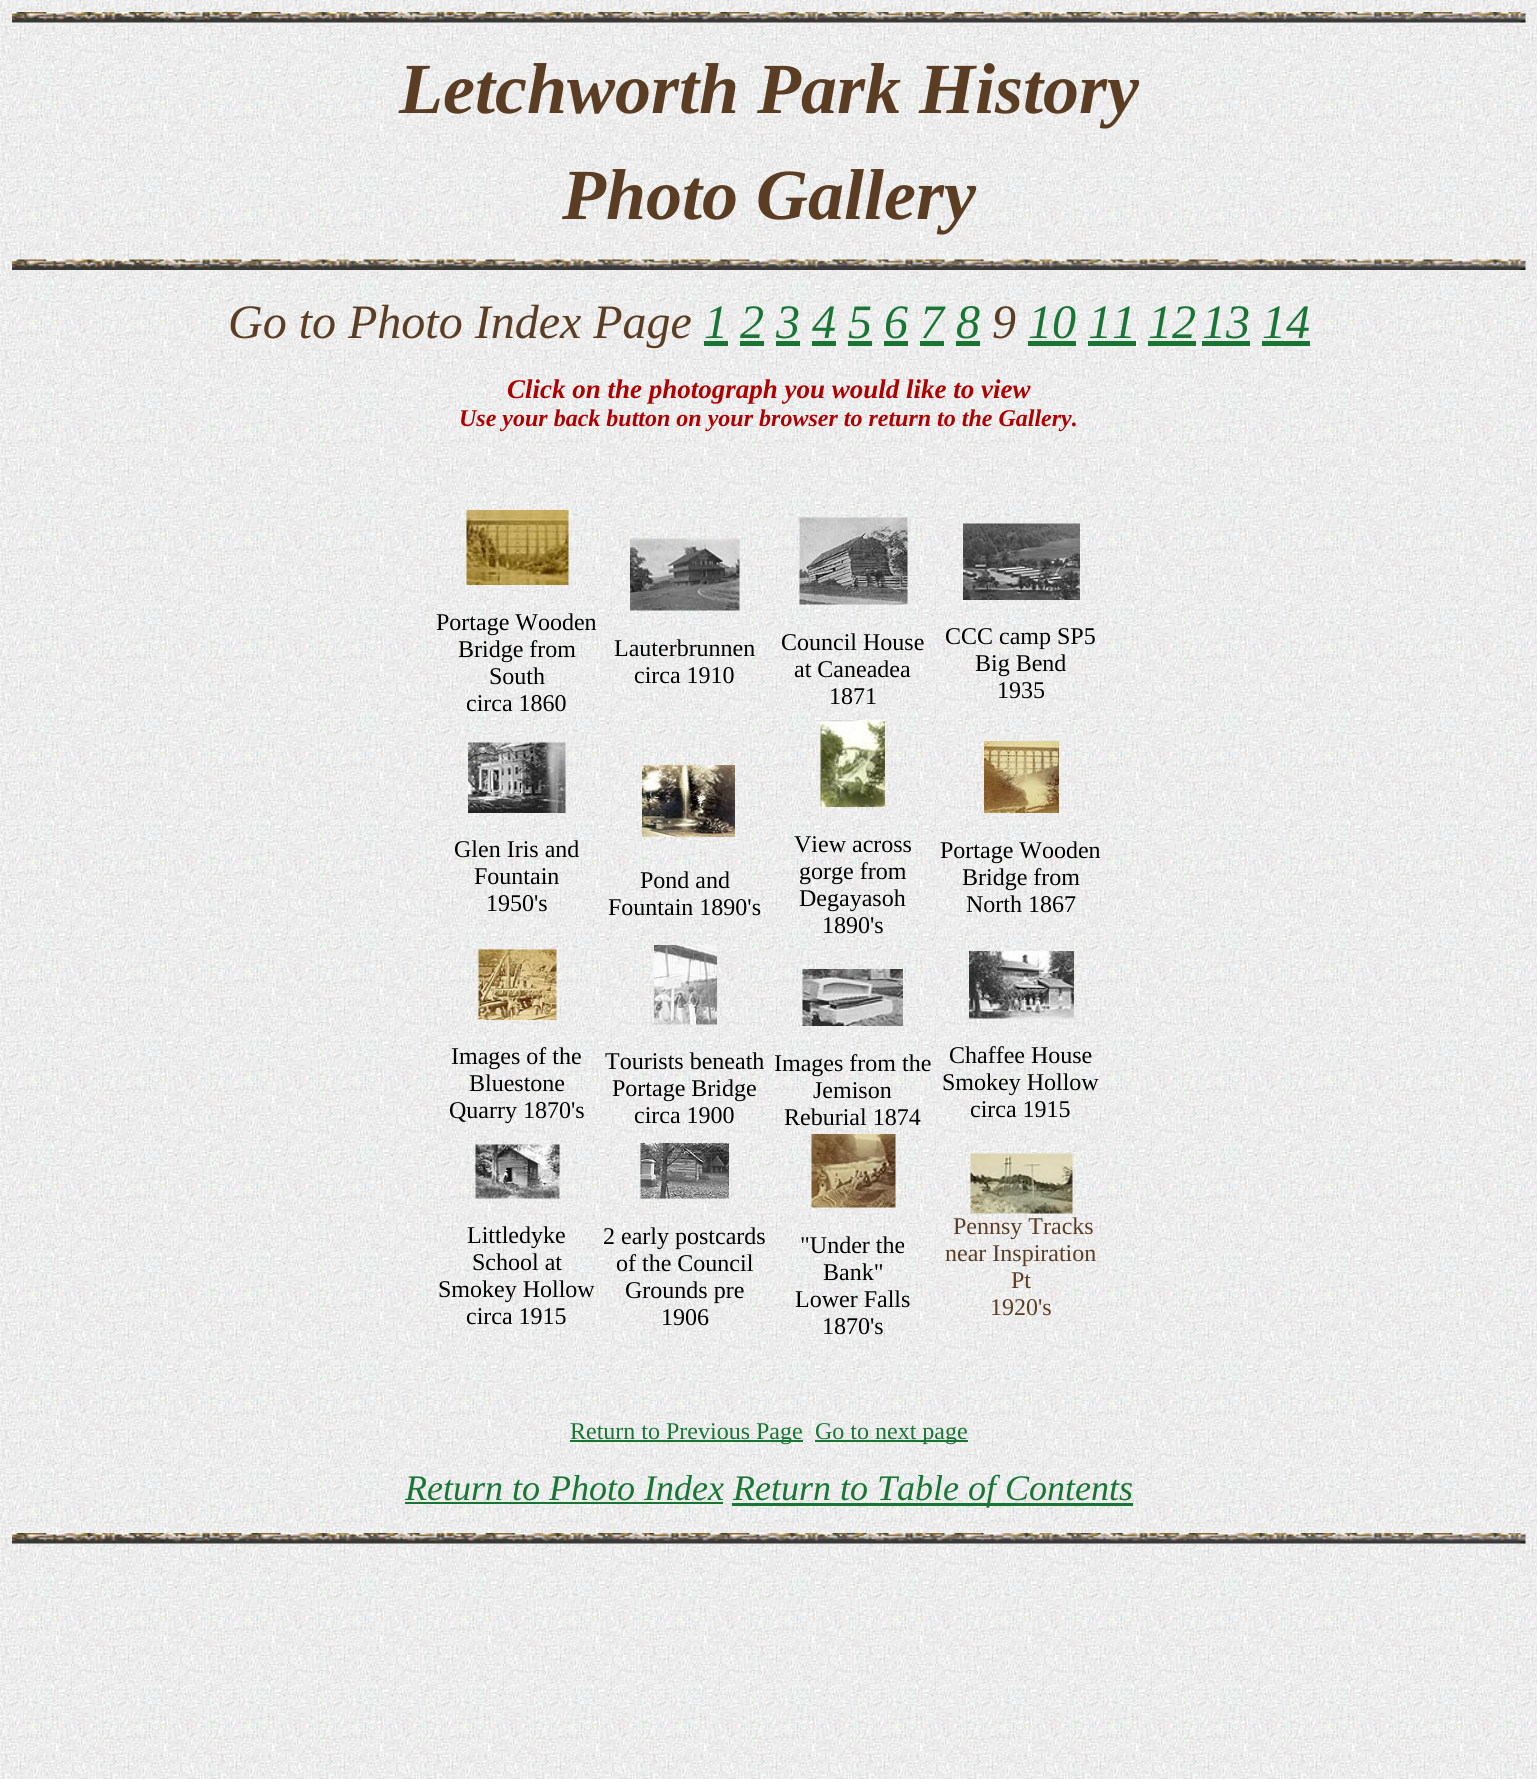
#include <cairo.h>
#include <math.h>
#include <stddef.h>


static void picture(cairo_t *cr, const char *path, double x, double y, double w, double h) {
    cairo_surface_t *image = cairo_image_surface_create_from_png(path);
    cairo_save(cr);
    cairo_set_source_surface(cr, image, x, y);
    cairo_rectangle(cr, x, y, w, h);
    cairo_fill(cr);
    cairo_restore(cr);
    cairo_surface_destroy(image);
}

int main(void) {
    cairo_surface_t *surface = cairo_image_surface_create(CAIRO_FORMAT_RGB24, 1537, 1779);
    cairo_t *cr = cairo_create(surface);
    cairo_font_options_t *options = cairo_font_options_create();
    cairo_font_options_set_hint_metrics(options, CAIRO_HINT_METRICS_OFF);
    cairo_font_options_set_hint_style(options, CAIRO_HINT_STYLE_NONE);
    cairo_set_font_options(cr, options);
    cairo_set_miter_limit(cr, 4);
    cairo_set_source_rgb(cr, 1, 1, 1);
    cairo_paint(cr);
    picture(cr, "img1.png", 0, 0, 1537, 1779);
    picture(cr, "img2.png", 12, 12, 1514, 11);
    cairo_select_font_face(cr, "Liberation Serif", CAIRO_FONT_SLANT_ITALIC, CAIRO_FONT_WEIGHT_BOLD);
    cairo_set_font_size(cr, 72);
    cairo_set_source_rgb(cr, 0.357, 0.239, 0.137);
    cairo_move_to(cr, 399, 113);
    cairo_show_text(cr, "Letchworth Park History");
    cairo_move_to(cr, 562, 219);
    cairo_show_text(cr, "Photo Gallery");
    picture(cr, "img3.png", 12, 259, 1514, 11);
    cairo_select_font_face(cr, "Liberation Serif", CAIRO_FONT_SLANT_ITALIC, CAIRO_FONT_WEIGHT_NORMAL);
    cairo_set_font_size(cr, 48);
    cairo_move_to(cr, 228, 338);
    cairo_show_text(cr, "Go to Photo Index Page");
    cairo_set_source_rgb(cr, 0.094, 0.459, 0.204);
    cairo_move_to(cr, 704, 338);
    cairo_show_text(cr, "1 2 3 4 5 6 7 8");
    cairo_rectangle(cr, 704, 341, 24, 5);
    cairo_fill(cr);
    cairo_rectangle(cr, 740, 341, 24, 5);
    cairo_fill(cr);
    cairo_rectangle(cr, 776, 341, 24, 5);
    cairo_fill(cr);
    cairo_rectangle(cr, 812, 341, 24, 5);
    cairo_fill(cr);
    cairo_rectangle(cr, 848, 341, 24, 5);
    cairo_fill(cr);
    cairo_rectangle(cr, 884, 341, 24, 5);
    cairo_fill(cr);
    cairo_rectangle(cr, 920, 341, 24, 5);
    cairo_fill(cr);
    cairo_rectangle(cr, 956, 341, 24, 5);
    cairo_fill(cr);
    cairo_set_source_rgb(cr, 0.357, 0.239, 0.137);
    cairo_move_to(cr, 992, 338);
    cairo_show_text(cr, "9");
    cairo_set_source_rgb(cr, 0.094, 0.459, 0.204);
    cairo_move_to(cr, 1028, 338);
    cairo_show_text(cr, "10 11 12");
    cairo_rectangle(cr, 1028, 341, 48, 5);
    cairo_fill(cr);
    cairo_rectangle(cr, 1088, 341, 48, 5);
    cairo_fill(cr);
    cairo_rectangle(cr, 1148, 341, 48, 5);
    cairo_fill(cr);
    cairo_move_to(cr, 1202, 338);
    cairo_show_text(cr, "13 14");
    cairo_rectangle(cr, 1202, 341, 48, 5);
    cairo_fill(cr);
    cairo_rectangle(cr, 1262, 341, 48, 5);
    cairo_fill(cr);
    cairo_select_font_face(cr, "Liberation Serif", CAIRO_FONT_SLANT_ITALIC, CAIRO_FONT_WEIGHT_BOLD);
    cairo_set_font_size(cr, 27);
    cairo_set_source_rgb(cr, 0.686, 0, 0);
    cairo_move_to(cr, 507, 398);
    cairo_show_text(cr, "Click on the photograph you would like to view");
    cairo_set_font_size(cr, 24);
    cairo_move_to(cr, 459, 426);
    cairo_show_text(cr, "Use your back button on your browser to return to the Gallery.");
    picture(cr, "img4.png", 466, 510, 103, 75);
    cairo_select_font_face(cr, "Liberation Serif", CAIRO_FONT_SLANT_NORMAL, CAIRO_FONT_WEIGHT_NORMAL);
    cairo_set_source_rgb(cr, 0, 0, 0);
    cairo_move_to(cr, 436, 630);
    cairo_show_text(cr, "Portage Wooden");
    cairo_move_to(cr, 458, 657);
    cairo_show_text(cr, "Bridge from");
    cairo_move_to(cr, 489, 684);
    cairo_show_text(cr, "South");
    cairo_move_to(cr, 466, 711);
    cairo_show_text(cr, "circa 1860");
    picture(cr, "img5.png", 630, 538, 110, 73);
    cairo_move_to(cr, 614, 656);
    cairo_show_text(cr, "Lauterbrunnen");
    cairo_move_to(cr, 634, 683);
    cairo_show_text(cr, "circa 1910");
    picture(cr, "img6.png", 799, 517, 109, 88);
    cairo_move_to(cr, 781, 650);
    cairo_show_text(cr, "Council House");
    cairo_move_to(cr, 794, 677);
    cairo_show_text(cr, "at Caneadea");
    cairo_move_to(cr, 829, 704);
    cairo_show_text(cr, "1871");
    picture(cr, "img7.png", 963, 523, 117, 77);
    cairo_move_to(cr, 945, 644);
    cairo_show_text(cr, "CCC camp SP5");
    cairo_move_to(cr, 975, 671);
    cairo_show_text(cr, "Big Bend");
    cairo_move_to(cr, 997, 698);
    cairo_show_text(cr, "1935");
    picture(cr, "img8.png", 468, 742, 98, 71);
    cairo_move_to(cr, 454, 857);
    cairo_show_text(cr, "Glen Iris and");
    cairo_move_to(cr, 474, 884);
    cairo_show_text(cr, "Fountain");
    cairo_move_to(cr, 486, 911);
    cairo_show_text(cr, "1950's");
    picture(cr, "img9.png", 642, 765, 93, 72);
    cairo_move_to(cr, 640, 888);
    cairo_show_text(cr, "Pond and");
    cairo_move_to(cr, 608, 915);
    cairo_show_text(cr, "Fountain 1890's");
    picture(cr, "img10.png", 820, 720, 65, 87);
    cairo_move_to(cr, 794, 852);
    cairo_show_text(cr, "View across");
    cairo_move_to(cr, 799, 879);
    cairo_show_text(cr, "gorge from");
    cairo_move_to(cr, 799, 906);
    cairo_show_text(cr, "Degayasoh");
    cairo_move_to(cr, 822, 933);
    cairo_show_text(cr, "1890's");
    picture(cr, "img11.png", 984, 741, 75, 72);
    cairo_move_to(cr, 940, 858);
    cairo_show_text(cr, "Portage Wooden");
    cairo_move_to(cr, 962, 885);
    cairo_show_text(cr, "Bridge from");
    cairo_move_to(cr, 966, 912);
    cairo_show_text(cr, "North 1867");
    picture(cr, "img12.png", 478, 949, 79, 71);
    cairo_move_to(cr, 451, 1064);
    cairo_show_text(cr, "Images of the");
    cairo_move_to(cr, 469, 1091);
    cairo_show_text(cr, "Bluestone");
    cairo_move_to(cr, 449, 1118);
    cairo_show_text(cr, "Quarry 1870's");
    picture(cr, "img13.png", 654, 945, 63, 80);
    cairo_move_to(cr, 605, 1069);
    cairo_show_text(cr, "Tourists beneath");
    cairo_move_to(cr, 612, 1096);
    cairo_show_text(cr, "Portage Bridge");
    cairo_move_to(cr, 634, 1123);
    cairo_show_text(cr, "circa 1900");
    picture(cr, "img14.png", 802, 969, 101, 57);
    cairo_move_to(cr, 774, 1071);
    cairo_show_text(cr, "Images from the");
    cairo_move_to(cr, 813, 1098);
    cairo_show_text(cr, "Jemison");
    cairo_move_to(cr, 784, 1125);
    cairo_show_text(cr, "Reburial 1874");
    picture(cr, "img15.png", 969, 951, 105, 68);
    cairo_move_to(cr, 949, 1063);
    cairo_show_text(cr, "Chaffee House");
    cairo_move_to(cr, 942, 1090);
    cairo_show_text(cr, "Smokey Hollow");
    cairo_move_to(cr, 970, 1117);
    cairo_show_text(cr, "circa 1915");
    picture(cr, "img16.png", 475, 1144, 85, 55);
    cairo_move_to(cr, 467, 1243);
    cairo_show_text(cr, "Littledyke");
    cairo_move_to(cr, 472, 1270);
    cairo_show_text(cr, "School at");
    cairo_move_to(cr, 438, 1297);
    cairo_show_text(cr, "Smokey Hollow");
    cairo_move_to(cr, 466, 1324);
    cairo_show_text(cr, "circa 1915");
    picture(cr, "img17.png", 640, 1143, 89, 56);
    cairo_move_to(cr, 603, 1244);
    cairo_show_text(cr, "2 early postcards");
    cairo_move_to(cr, 616, 1271);
    cairo_show_text(cr, "of the Council");
    cairo_move_to(cr, 625, 1298);
    cairo_show_text(cr, "Grounds pre");
    cairo_move_to(cr, 661, 1325);
    cairo_show_text(cr, "1906");
    picture(cr, "img18.png", 811, 1134, 85, 74);
    cairo_move_to(cr, 800, 1253);
    cairo_show_text(cr, "\"Under the");
    cairo_move_to(cr, 823, 1280);
    cairo_show_text(cr, "Bank\"");
    cairo_move_to(cr, 795, 1307);
    cairo_show_text(cr, "Lower Falls");
    cairo_move_to(cr, 822, 1334);
    cairo_show_text(cr, "1870's");
    picture(cr, "img19.png", 970, 1153, 103, 61);
    cairo_set_source_rgb(cr, 0.357, 0.239, 0.137);
    cairo_move_to(cr, 953, 1234);
    cairo_show_text(cr, "Pennsy Tracks");
    cairo_move_to(cr, 945, 1261);
    cairo_show_text(cr, "near Inspiration");
    cairo_move_to(cr, 1011, 1288);
    cairo_show_text(cr, "Pt");
    cairo_move_to(cr, 990, 1315);
    cairo_show_text(cr, "1920's");
    cairo_set_source_rgb(cr, 0.094, 0.459, 0.204);
    cairo_rectangle(cr, 570, 1440, 233, 2);
    cairo_fill(cr);
    cairo_move_to(cr, 570, 1439);
    cairo_show_text(cr, "Return to Previous Page");
    cairo_rectangle(cr, 815, 1440, 153, 2);
    cairo_fill(cr);
    cairo_move_to(cr, 815, 1439);
    cairo_show_text(cr, "Go to next page");
    cairo_select_font_face(cr, "Liberation Serif", CAIRO_FONT_SLANT_ITALIC, CAIRO_FONT_WEIGHT_NORMAL);
    cairo_set_font_size(cr, 36);
    cairo_move_to(cr, 405, 1500);
    cairo_show_text(cr, "Return to Photo Index");
    cairo_rectangle(cr, 405, 1502, 318, 2);
    cairo_fill(cr);
    cairo_rectangle(cr, 732, 1503, 401, 3);
    cairo_fill(cr);
    cairo_move_to(cr, 733, 1500);
    cairo_show_text(cr, "Return to Table of Contents");
    picture(cr, "img20.png", 12, 1533, 1514, 11);
    cairo_surface_write_to_png(surface, "page.png");
    cairo_font_options_destroy(options);
    cairo_destroy(cr);
    cairo_surface_destroy(surface);
    return 0;
}
